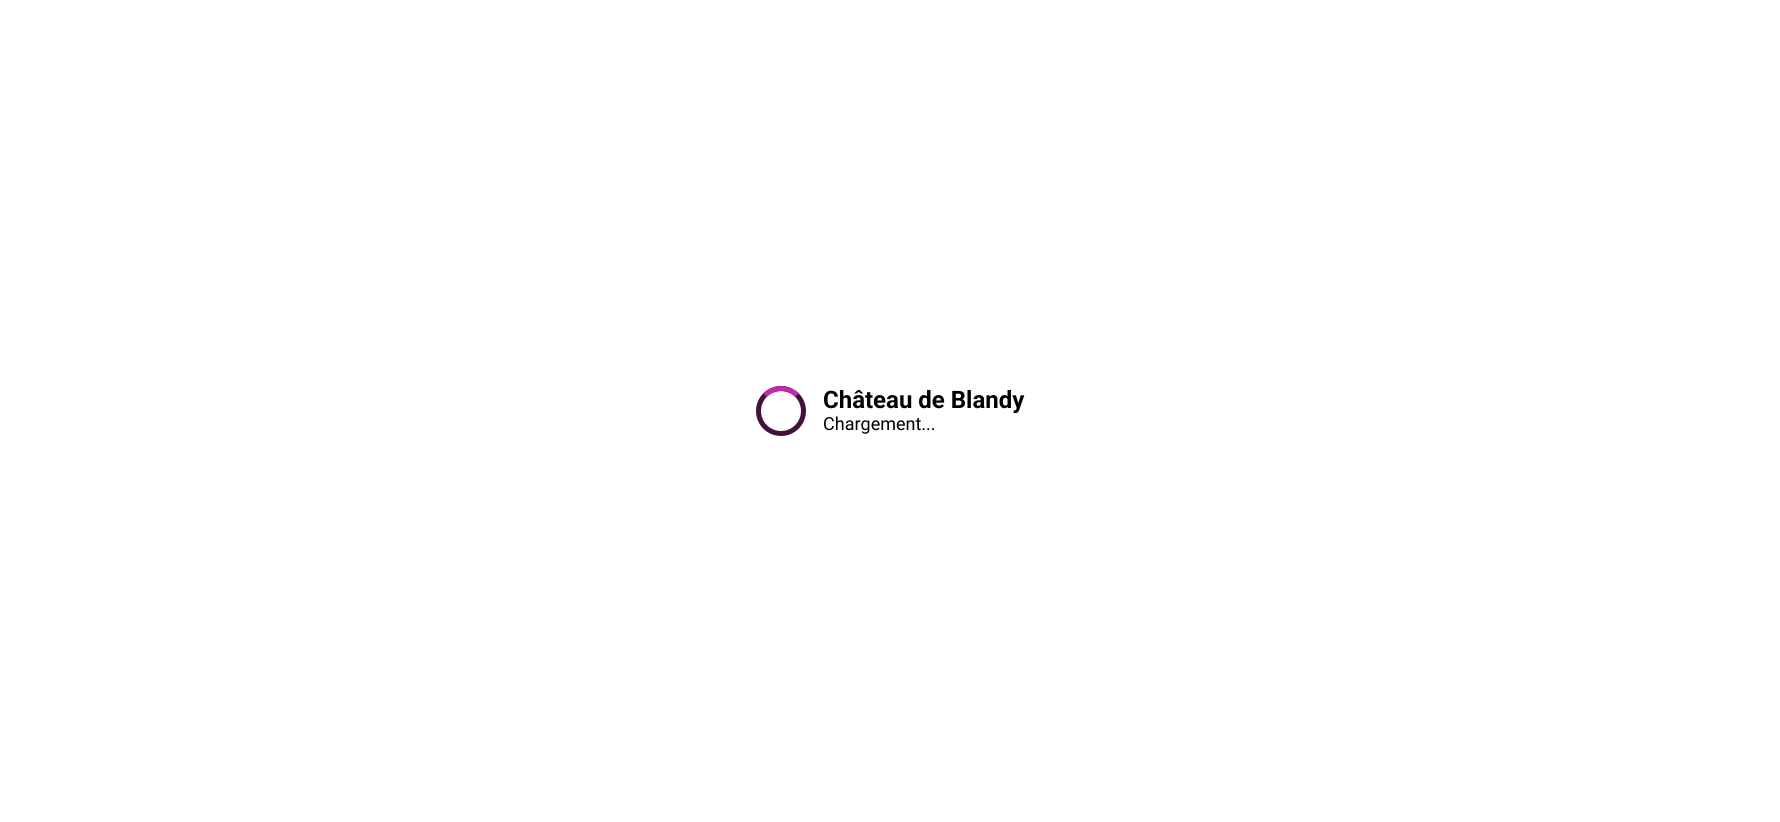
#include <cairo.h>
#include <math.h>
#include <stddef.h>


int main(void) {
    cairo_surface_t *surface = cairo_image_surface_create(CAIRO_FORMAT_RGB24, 1780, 822);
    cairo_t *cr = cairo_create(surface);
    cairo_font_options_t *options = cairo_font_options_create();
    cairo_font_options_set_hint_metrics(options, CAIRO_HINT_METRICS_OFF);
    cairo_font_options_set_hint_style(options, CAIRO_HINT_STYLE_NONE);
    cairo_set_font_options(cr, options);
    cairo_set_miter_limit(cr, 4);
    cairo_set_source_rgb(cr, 1, 1, 1);
    cairo_paint(cr);
    cairo_arc(cr, 781, 411, 22.5, 0, 2 * M_PI);
    cairo_set_source_rgb(cr, 0.263, 0.059, 0.231);
    cairo_set_line_width(cr, 5);
    cairo_stroke(cr);
    cairo_new_path(cr);
    cairo_move_to(cr, 765, 395);
    cairo_curve_to(cr, 774, 386.5, 788, 386.5, 797, 395);
    cairo_set_source_rgb(cr, 0.757, 0.165, 0.659);
    cairo_stroke(cr);
    cairo_select_font_face(cr, "Roboto", CAIRO_FONT_SLANT_NORMAL, CAIRO_FONT_WEIGHT_BOLD);
    cairo_set_font_size(cr, 24);
    cairo_set_source_rgb(cr, 0, 0, 0);
    cairo_move_to(cr, 823, 408);
    cairo_show_text(cr, "Château de Blandy");
    cairo_select_font_face(cr, "Roboto", CAIRO_FONT_SLANT_NORMAL, CAIRO_FONT_WEIGHT_NORMAL);
    cairo_set_font_size(cr, 18);
    cairo_move_to(cr, 823, 430);
    cairo_show_text(cr, "Chargement...");
    cairo_surface_write_to_png(surface, "page.png");
    cairo_font_options_destroy(options);
    cairo_destroy(cr);
    cairo_surface_destroy(surface);
    return 0;
}
